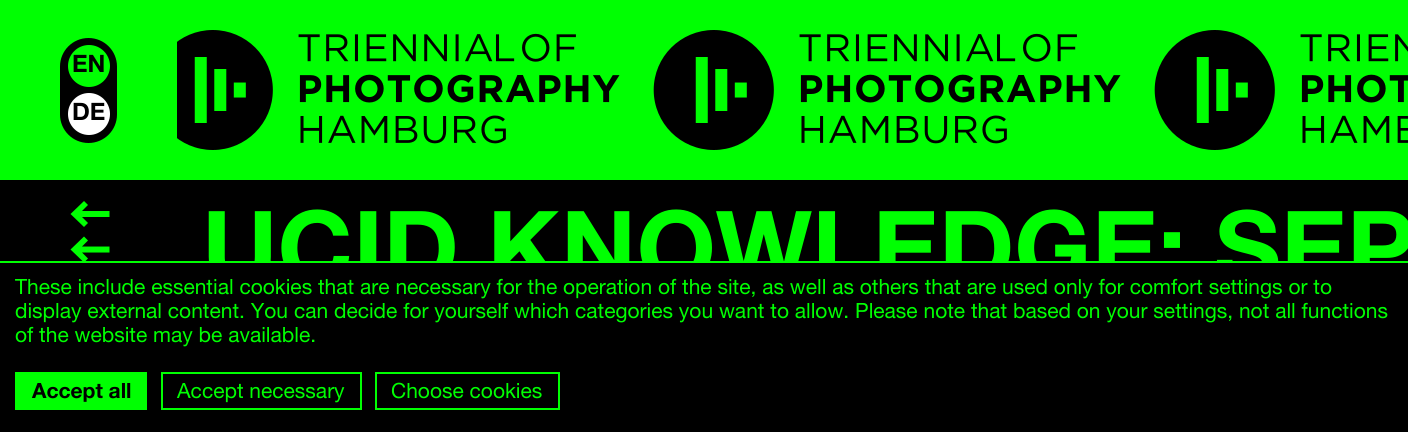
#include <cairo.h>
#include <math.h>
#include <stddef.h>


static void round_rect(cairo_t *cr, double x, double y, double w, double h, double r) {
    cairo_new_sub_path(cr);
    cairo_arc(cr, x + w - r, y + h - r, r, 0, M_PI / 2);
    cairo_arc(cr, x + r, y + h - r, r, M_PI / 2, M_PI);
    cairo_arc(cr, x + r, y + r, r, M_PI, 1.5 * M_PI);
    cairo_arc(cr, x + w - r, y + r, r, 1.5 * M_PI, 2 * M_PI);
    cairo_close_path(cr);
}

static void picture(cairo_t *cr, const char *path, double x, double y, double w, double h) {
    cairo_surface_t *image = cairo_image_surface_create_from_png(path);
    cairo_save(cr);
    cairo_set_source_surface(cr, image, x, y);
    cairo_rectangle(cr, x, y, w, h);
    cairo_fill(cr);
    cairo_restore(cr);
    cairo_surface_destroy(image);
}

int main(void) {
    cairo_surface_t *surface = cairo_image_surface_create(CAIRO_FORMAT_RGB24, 1408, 432);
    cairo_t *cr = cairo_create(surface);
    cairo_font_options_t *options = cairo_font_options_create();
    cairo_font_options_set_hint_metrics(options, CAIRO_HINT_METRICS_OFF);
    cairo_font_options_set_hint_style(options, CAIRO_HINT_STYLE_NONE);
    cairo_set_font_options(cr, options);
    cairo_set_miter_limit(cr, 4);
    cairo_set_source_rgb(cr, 0, 0, 0);
    cairo_paint(cr);
    cairo_set_source_rgb(cr, 0, 1, 0.008);
    cairo_rectangle(cr, 0, 0, 1408, 180);
    cairo_fill(cr);
    cairo_set_source_rgb(cr, 0, 0, 0);
    round_rect(cr, 60, 38, 57, 105, 28.5);
    cairo_fill(cr);
    cairo_set_source_rgb(cr, 0, 1, 0.008);
    cairo_arc(cr, 89, 66, 21, 0, 2 * M_PI);
    cairo_fill(cr);
    cairo_select_font_face(cr, "Helvetica Neue", CAIRO_FONT_SLANT_NORMAL, CAIRO_FONT_WEIGHT_BOLD);
    cairo_set_font_size(cr, 24);
    cairo_set_source_rgb(cr, 0, 0, 0);
    cairo_move_to(cr, 72, 72);
    cairo_show_text(cr, "EN");
    cairo_set_source_rgb(cr, 1, 1, 1);
    cairo_new_path(cr);
    cairo_arc(cr, 89, 114, 21, 0, 2 * M_PI);
    cairo_fill(cr);
    cairo_set_source_rgb(cr, 0, 0, 0);
    cairo_move_to(cr, 72, 120);
    cairo_show_text(cr, "DE");
    picture(cr, "img1.png", 177, 30, 443, 120);
    picture(cr, "img2.png", 653, 30, 468, 120);
    picture(cr, "img3.png", 1154, 30, 254, 120);
    cairo_set_source_rgb(cr, 0, 1, 0.008);
    cairo_set_fill_rule(cr, CAIRO_FILL_RULE_EVEN_ODD);
    cairo_new_path(cr);
    cairo_move_to(cr, 70.5, 214);
    cairo_line_to(cr, 84, 227);
    cairo_line_to(cr, 88, 223);
    cairo_line_to(cr, 82, 217);
    cairo_line_to(cr, 109.5, 217);
    cairo_line_to(cr, 109.5, 211);
    cairo_line_to(cr, 82, 211);
    cairo_line_to(cr, 88, 205);
    cairo_line_to(cr, 84, 201);
    cairo_close_path(cr);
    cairo_move_to(cr, 70.5, 249.5);
    cairo_line_to(cr, 84, 262.5);
    cairo_line_to(cr, 88, 258.5);
    cairo_line_to(cr, 82, 252.5);
    cairo_line_to(cr, 109.5, 252.5);
    cairo_line_to(cr, 109.5, 246.5);
    cairo_line_to(cr, 82, 246.5);
    cairo_line_to(cr, 88, 240.5);
    cairo_line_to(cr, 84, 236.5);
    cairo_close_path(cr);
    cairo_fill(cr);
    cairo_set_font_size(cr, 102);
    cairo_move_to(cr, 202, 284);
    cairo_show_text(cr, "UCID KNOWLEDGE: SEP");
    cairo_set_source_rgb(cr, 0, 0, 0);
    cairo_rectangle(cr, 209, 263, 1161, 23);
    cairo_fill(cr);
    cairo_set_source_rgb(cr, 0, 1, 0.008);
    cairo_rectangle(cr, 0, 261, 1408, 2);
    cairo_fill(cr);
    cairo_select_font_face(cr, "Helvetica Neue", CAIRO_FONT_SLANT_NORMAL, CAIRO_FONT_WEIGHT_NORMAL);
    cairo_set_font_size(cr, 21);
    cairo_move_to(cr, 15, 294);
    cairo_show_text(cr, "These include essential cookies that are necessary for the operation of the site, as well as others that are used only for comfort settings or to");
    cairo_move_to(cr, 15, 318);
    cairo_show_text(cr, "display external content. You can decide for yourself which categories you want to allow. Please note that based on your settings, not all functions");
    cairo_move_to(cr, 15, 342);
    cairo_show_text(cr, "of the website may be available.");
    cairo_rectangle(cr, 15, 372, 132, 38);
    cairo_fill(cr);
    cairo_select_font_face(cr, "Helvetica Neue", CAIRO_FONT_SLANT_NORMAL, CAIRO_FONT_WEIGHT_BOLD);
    cairo_set_source_rgb(cr, 0, 0, 0);
    cairo_move_to(cr, 32, 398);
    cairo_show_text(cr, "Accept all");
    cairo_rectangle(cr, 162, 373, 199, 36);
    cairo_set_source_rgb(cr, 0, 1, 0.008);
    cairo_stroke(cr);
    cairo_select_font_face(cr, "Helvetica Neue", CAIRO_FONT_SLANT_NORMAL, CAIRO_FONT_WEIGHT_NORMAL);
    cairo_move_to(cr, 177, 398);
    cairo_show_text(cr, "Accept necessary");
    cairo_rectangle(cr, 376, 373, 183, 36);
    cairo_stroke(cr);
    cairo_move_to(cr, 391, 398);
    cairo_show_text(cr, "Choose cookies");
    cairo_surface_write_to_png(surface, "page.png");
    cairo_font_options_destroy(options);
    cairo_destroy(cr);
    cairo_surface_destroy(surface);
    return 0;
}
